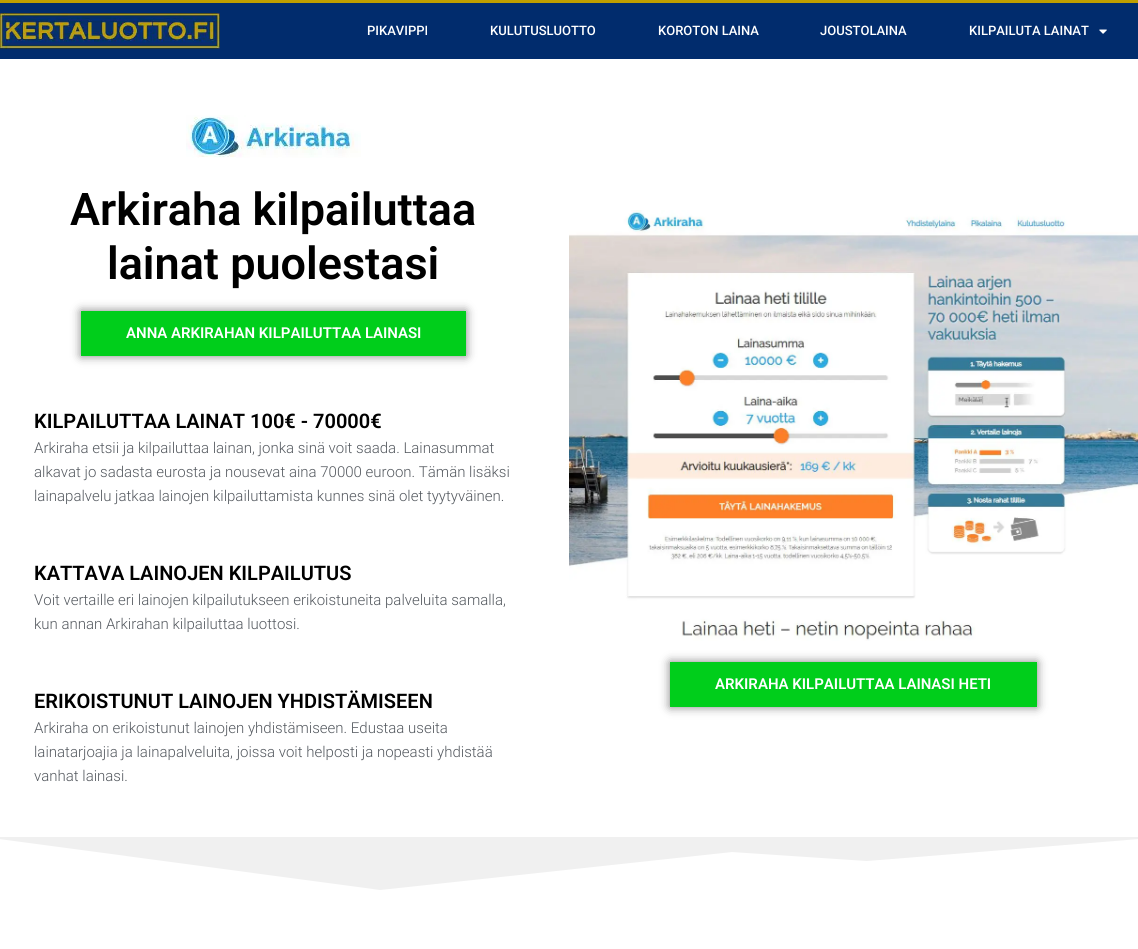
#include <cairo.h>
#include <math.h>
#include <stddef.h>


static void round_rect(cairo_t *cr, double x, double y, double w, double h, double r) {
    cairo_new_sub_path(cr);
    cairo_arc(cr, x + w - r, y + h - r, r, 0, M_PI / 2);
    cairo_arc(cr, x + r, y + h - r, r, M_PI / 2, M_PI);
    cairo_arc(cr, x + r, y + r, r, M_PI, 1.5 * M_PI);
    cairo_arc(cr, x + w - r, y + r, r, 1.5 * M_PI, 2 * M_PI);
    cairo_close_path(cr);
}

static void shadow(cairo_t *cr, double x, double y, double w, double h, double r, double blur, double alpha) {
    cairo_push_group_with_content(cr, CAIRO_CONTENT_ALPHA);
    cairo_set_operator(cr, CAIRO_OPERATOR_SOURCE);
    for (int i = 15; i >= -15 && fmin(w, h) + blur * i / 3 > 0; i -= 2) {
        double e = blur * i / 6;
        cairo_set_source_rgba(cr, 0, 0, 0, alpha * erfc((i - 1) / 8.5) / 2);
        round_rect(cr, x - e, y - e, w + 2 * e, h + 2 * e, fmax(0, fmin(r + e + blur * .6, fmin(w, h) / 2 + e)));
        cairo_fill(cr);
    }
    cairo_pattern_t *soft = cairo_pop_group(cr);
    cairo_mask(cr, soft);
    cairo_pattern_destroy(soft);
}

static void picture(cairo_t *cr, const char *path, double x, double y, double w, double h) {
    cairo_surface_t *image = cairo_image_surface_create_from_png(path);
    cairo_save(cr);
    cairo_set_source_surface(cr, image, x, y);
    cairo_rectangle(cr, x, y, w, h);
    cairo_fill(cr);
    cairo_restore(cr);
    cairo_surface_destroy(image);
}

int main(void) {
    cairo_surface_t *surface = cairo_image_surface_create(CAIRO_FORMAT_RGB24, 1138, 949);
    cairo_t *cr = cairo_create(surface);
    cairo_font_options_t *options = cairo_font_options_create();
    cairo_font_options_set_hint_metrics(options, CAIRO_HINT_METRICS_OFF);
    cairo_font_options_set_hint_style(options, CAIRO_HINT_STYLE_NONE);
    cairo_set_font_options(cr, options);
    cairo_set_miter_limit(cr, 4);
    cairo_set_source_rgb(cr, 1, 1, 1);
    cairo_paint(cr);
    cairo_set_source_rgb(cr, 0.004, 0.173, 0.427);
    cairo_rectangle(cr, 0, 3, 1138, 56);
    cairo_fill(cr);
    cairo_set_source_rgb(cr, 0.749, 0.624, 0);
    cairo_rectangle(cr, 0, 0, 1138, 3);
    cairo_fill(cr);
    picture(cr, "img1.png", 0, 13, 220, 36);
    cairo_select_font_face(cr, "Roboto Medium", CAIRO_FONT_SLANT_NORMAL, CAIRO_FONT_WEIGHT_NORMAL);
    cairo_set_font_size(cr, 13);
    cairo_set_source_rgb(cr, 1, 1, 1);
    cairo_move_to(cr, 367, 35);
    cairo_show_text(cr, "PIKAVIPPI");
    cairo_move_to(cr, 490, 35);
    cairo_show_text(cr, "KULUTUSLUOTTO");
    cairo_move_to(cr, 658, 35);
    cairo_show_text(cr, "KOROTON LAINA");
    cairo_move_to(cr, 820, 35);
    cairo_show_text(cr, "JOUSTOLAINA");
    cairo_move_to(cr, 969, 35);
    cairo_show_text(cr, "KILPAILUTA LAINAT");
    picture(cr, "img2.png", 1099, 29, 8, 5);
    picture(cr, "img3.png", 186, 115, 175, 43);
    cairo_select_font_face(cr, "Roboto SemiBold", CAIRO_FONT_SLANT_NORMAL, CAIRO_FONT_WEIGHT_NORMAL);
    cairo_set_font_size(cr, 45);
    cairo_set_source_rgb(cr, 0, 0, 0);
    cairo_move_to(cr, 70, 225);
    cairo_show_text(cr, "Arkiraha kilpailuttaa");
    cairo_move_to(cr, 107, 279);
    cairo_show_text(cr, "lainat puolestasi");
    cairo_set_source_rgb(cr, 0, 0, 0);
    shadow(cr, 81, 311, 385, 45, 0, 5, 0.5);
    cairo_set_source_rgb(cr, 0, 0.808, 0.106);
    cairo_rectangle(cr, 81, 311, 385, 45);
    cairo_fill(cr);
    cairo_set_font_size(cr, 15);
    cairo_set_source_rgb(cr, 1, 1, 1);
    cairo_move_to(cr, 126, 338);
    cairo_show_text(cr, "ANNA ARKIRAHAN KILPAILUTTAA LAINASI");
    cairo_set_font_size(cr, 20);
    cairo_set_source_rgb(cr, 0, 0, 0);
    cairo_move_to(cr, 34, 428);
    cairo_show_text(cr, "KILPAILUTTAA LAINAT 100€ - 70000€");
    cairo_select_font_face(cr, "Roboto Light", CAIRO_FONT_SLANT_NORMAL, CAIRO_FONT_WEIGHT_NORMAL);
    cairo_set_font_size(cr, 15);
    cairo_set_source_rgb(cr, 0.329, 0.349, 0.373);
    cairo_move_to(cr, 34, 453);
    cairo_show_text(cr, "Arkiraha etsii ja kilpailuttaa lainan, jonka sinä voit saada. Lainasummat");
    cairo_move_to(cr, 34, 477);
    cairo_show_text(cr, "alkavat jo sadasta eurosta ja nousevat aina 70000 euroon. Tämän lisäksi");
    cairo_move_to(cr, 34, 501);
    cairo_show_text(cr, "lainapalvelu jatkaa lainojen kilpailuttamista kunnes sinä olet tyytyväinen.");
    cairo_select_font_face(cr, "Roboto SemiBold", CAIRO_FONT_SLANT_NORMAL, CAIRO_FONT_WEIGHT_NORMAL);
    cairo_set_font_size(cr, 20);
    cairo_set_source_rgb(cr, 0, 0, 0);
    cairo_move_to(cr, 34, 580);
    cairo_show_text(cr, "KATTAVA LAINOJEN KILPAILUTUS");
    cairo_select_font_face(cr, "Roboto Light", CAIRO_FONT_SLANT_NORMAL, CAIRO_FONT_WEIGHT_NORMAL);
    cairo_set_font_size(cr, 15);
    cairo_set_source_rgb(cr, 0.329, 0.349, 0.373);
    cairo_move_to(cr, 34, 605);
    cairo_show_text(cr, "Voit vertaille eri lainojen kilpailutukseen erikoistuneita palveluita samalla,");
    cairo_move_to(cr, 34, 629);
    cairo_show_text(cr, "kun annan Arkirahan kilpailuttaa luottosi.");
    cairo_select_font_face(cr, "Roboto SemiBold", CAIRO_FONT_SLANT_NORMAL, CAIRO_FONT_WEIGHT_NORMAL);
    cairo_set_font_size(cr, 20);
    cairo_set_source_rgb(cr, 0, 0, 0);
    cairo_move_to(cr, 34, 708);
    cairo_show_text(cr, "ERIKOISTUNUT LAINOJEN YHDISTÄMISEEN");
    cairo_select_font_face(cr, "Roboto Light", CAIRO_FONT_SLANT_NORMAL, CAIRO_FONT_WEIGHT_NORMAL);
    cairo_set_font_size(cr, 15);
    cairo_set_source_rgb(cr, 0.329, 0.349, 0.373);
    cairo_move_to(cr, 34, 733);
    cairo_show_text(cr, "Arkiraha on erikoistunut lainojen yhdistämiseen. Edustaa useita");
    cairo_move_to(cr, 34, 757);
    cairo_show_text(cr, "lainatarjoajia ja lainapalveluita, joissa voit helposti ja nopeasti yhdistää");
    cairo_move_to(cr, 34, 781);
    cairo_show_text(cr, "vanhat lainasi.");
    picture(cr, "img4.png", 569, 210, 569, 431);
    cairo_set_source_rgb(cr, 0, 0, 0);
    shadow(cr, 670, 662, 367, 45, 0, 5, 0.5);
    cairo_set_source_rgb(cr, 0, 0.808, 0.106);
    cairo_rectangle(cr, 670, 662, 367, 45);
    cairo_fill(cr);
    cairo_select_font_face(cr, "Roboto SemiBold", CAIRO_FONT_SLANT_NORMAL, CAIRO_FONT_WEIGHT_NORMAL);
    cairo_set_source_rgb(cr, 1, 1, 1);
    cairo_move_to(cr, 715, 689);
    cairo_show_text(cr, "ARKIRAHA KILPAILUTTAA LAINASI HETI");
    cairo_set_source_rgb(cr, 0.941, 0.941, 0.941);
    cairo_new_path(cr);
    cairo_move_to(cr, 867, 861);
    cairo_line_to(cr, 732, 852);
    cairo_line_to(cr, 380, 890);
    cairo_line_to(cr, -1, 839);
    cairo_line_to(cr, -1, 837);
    cairo_line_to(cr, 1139, 837);
    cairo_line_to(cr, 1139, 839);
    cairo_fill(cr);
    cairo_surface_write_to_png(surface, "page.png");
    cairo_font_options_destroy(options);
    cairo_destroy(cr);
    cairo_surface_destroy(surface);
    return 0;
}
